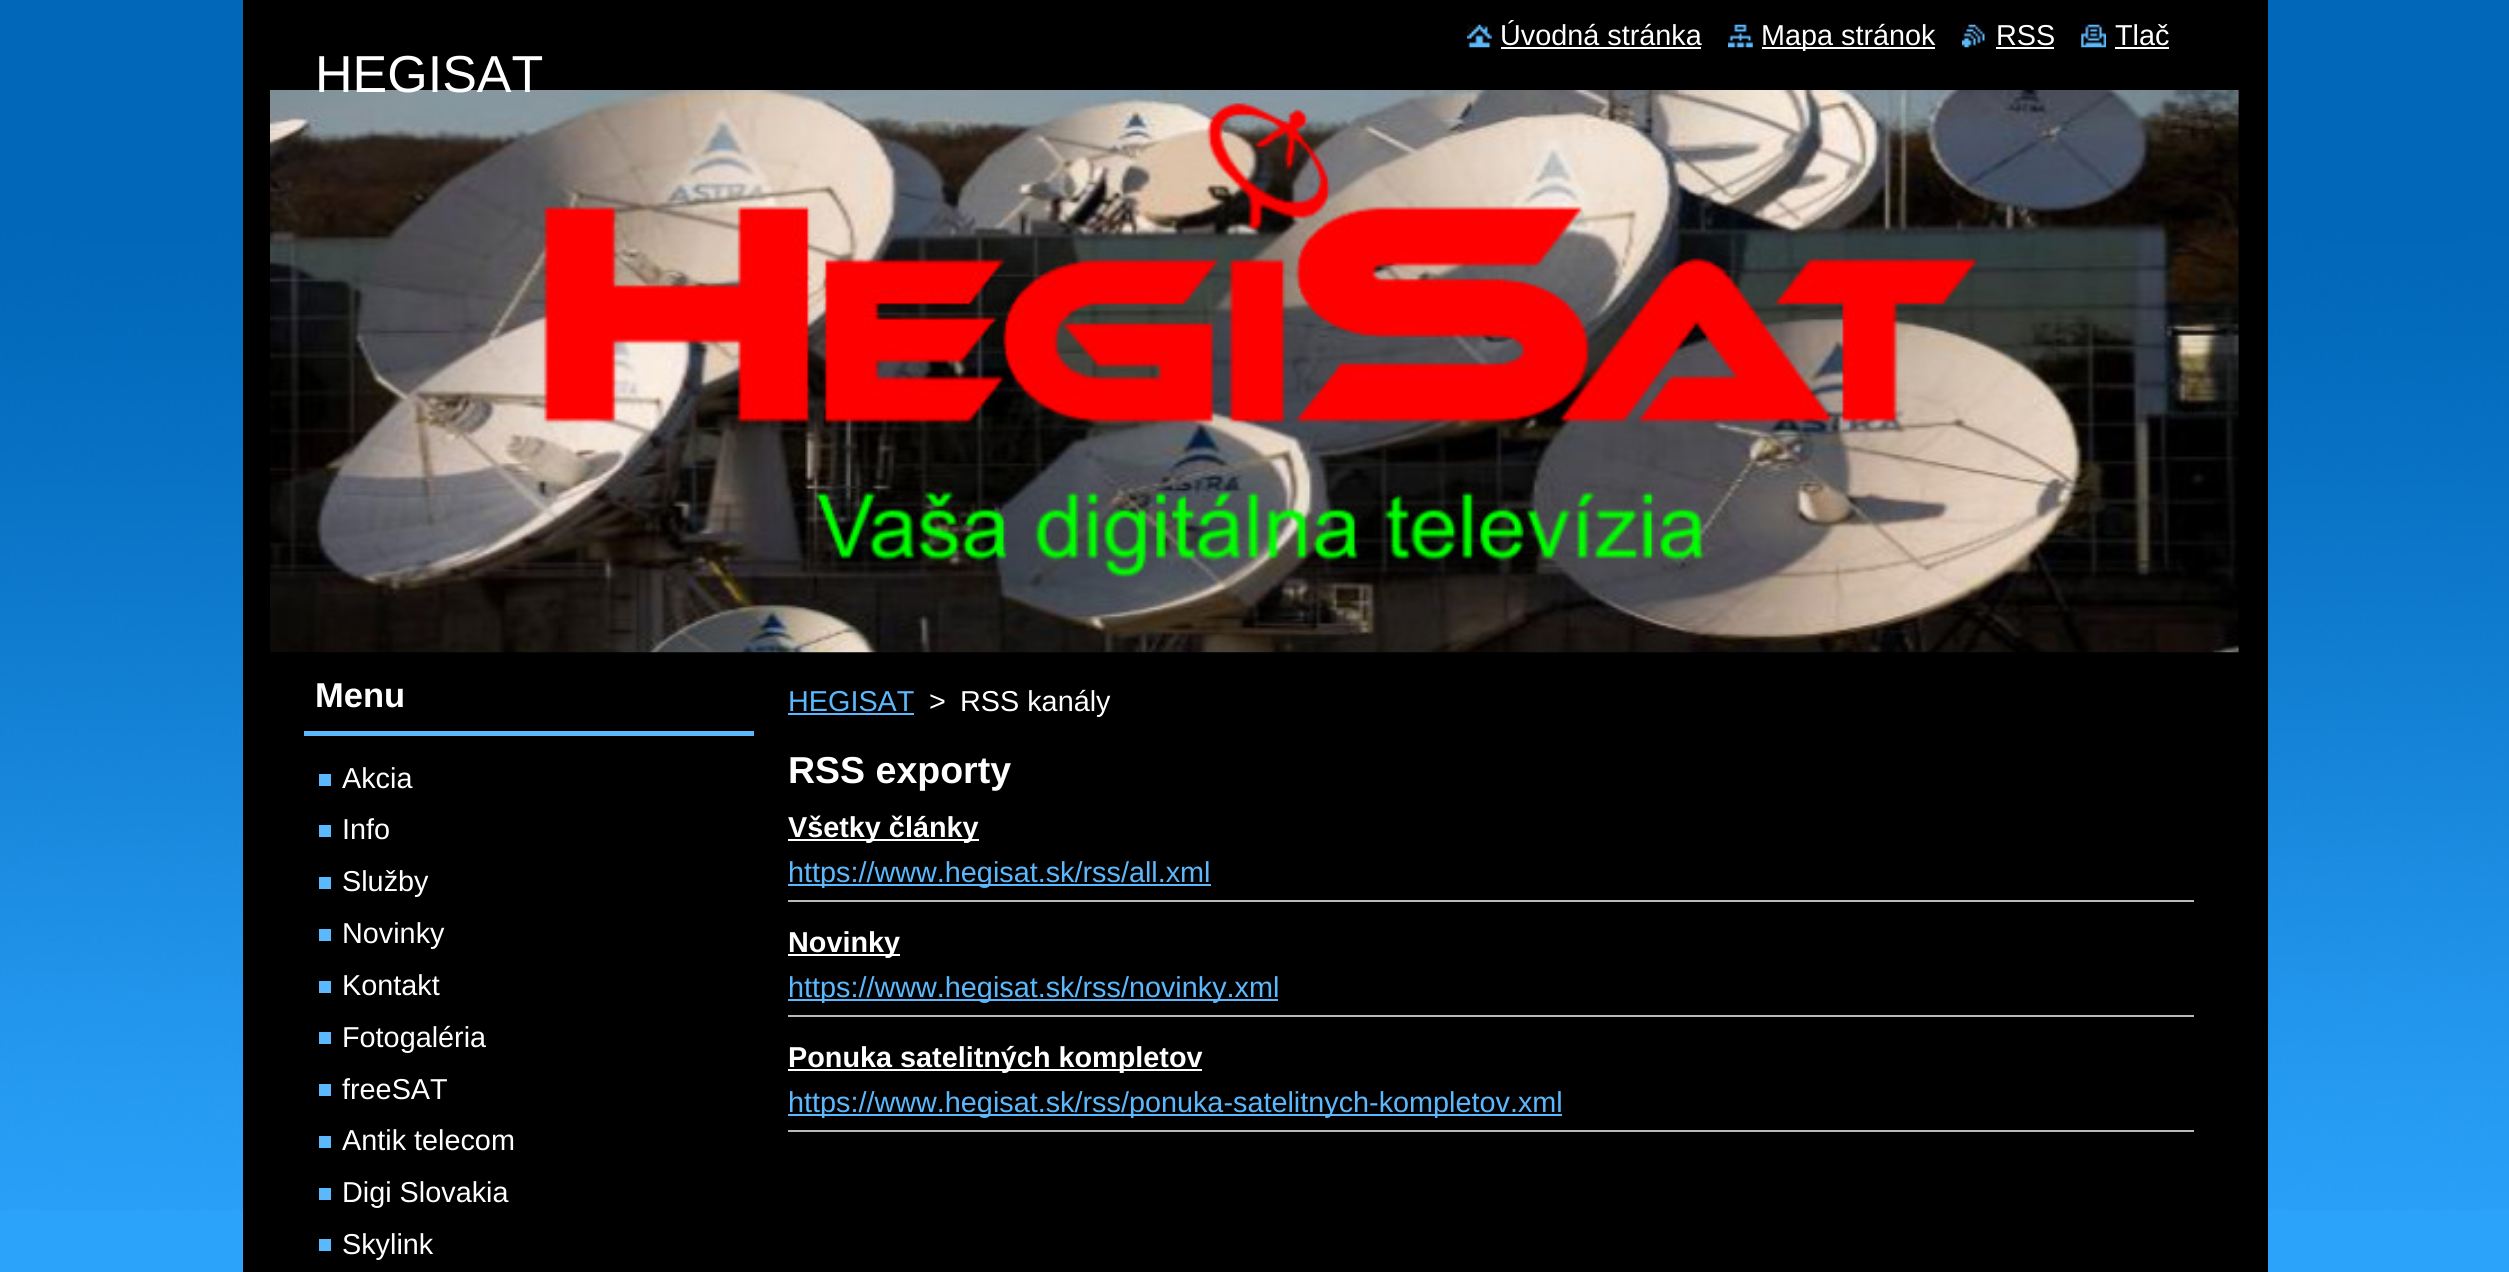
#include <cairo.h>
#include <math.h>
#include <stddef.h>


static void picture(cairo_t *cr, const char *path, double x, double y, double w, double h) {
    cairo_surface_t *image = cairo_image_surface_create_from_png(path);
    cairo_save(cr);
    cairo_set_source_surface(cr, image, x, y);
    cairo_rectangle(cr, x, y, w, h);
    cairo_fill(cr);
    cairo_restore(cr);
    cairo_surface_destroy(image);
}

int main(void) {
    cairo_surface_t *surface = cairo_image_surface_create(CAIRO_FORMAT_RGB24, 2509, 1272);
    cairo_t *cr = cairo_create(surface);
    cairo_font_options_t *options = cairo_font_options_create();
    cairo_font_options_set_hint_metrics(options, CAIRO_HINT_METRICS_OFF);
    cairo_font_options_set_hint_style(options, CAIRO_HINT_STYLE_NONE);
    cairo_set_font_options(cr, options);
    cairo_set_miter_limit(cr, 4);
    cairo_set_source_rgb(cr, 0.173, 0.639, 0.984);
    cairo_paint(cr);
    picture(cr, "img1.png", 0, 0, 2509, 1210);
    cairo_set_source_rgb(cr, 0, 0, 0);
    cairo_rectangle(cr, 243, 0, 2025, 1272);
    cairo_fill(cr);
    picture(cr, "img2.png", 1467, 24, 25, 24);
    cairo_select_font_face(cr, "Liberation Sans", CAIRO_FONT_SLANT_NORMAL, CAIRO_FONT_WEIGHT_NORMAL);
    cairo_set_font_size(cr, 28.8);
    cairo_set_source_rgb(cr, 1, 1, 1);
    cairo_move_to(cr, 1500, 45);
    cairo_show_text(cr, "Úvodná stránka");
    cairo_rectangle(cr, 1501, 47, 200, 2);
    cairo_fill(cr);
    picture(cr, "img3.png", 1728, 24, 25, 24);
    cairo_rectangle(cr, 1762, 47, 173, 2);
    cairo_fill(cr);
    cairo_move_to(cr, 1761, 45);
    cairo_show_text(cr, "Mapa stránok");
    picture(cr, "img4.png", 1962, 24, 23, 24);
    cairo_move_to(cr, 1996, 45);
    cairo_show_text(cr, "RSS");
    cairo_rectangle(cr, 1996, 47, 58, 2);
    cairo_fill(cr);
    picture(cr, "img5.png", 2081, 24, 25, 24);
    cairo_move_to(cr, 2115, 45);
    cairo_show_text(cr, "Tlač");
    cairo_rectangle(cr, 2115, 47, 54, 2);
    cairo_fill(cr);
    picture(cr, "img6.png", 270, 90, 1969, 563);
    cairo_set_font_size(cr, 52);
    cairo_move_to(cr, 315, 92);
    cairo_show_text(cr, "HEGISAT");
    cairo_set_source_rgb(cr, 0.361, 0.722, 0.988);
    cairo_rectangle(cr, 304, 731, 450, 5);
    cairo_fill(cr);
    cairo_select_font_face(cr, "Liberation Sans", CAIRO_FONT_SLANT_NORMAL, CAIRO_FONT_WEIGHT_BOLD);
    cairo_set_font_size(cr, 34.5);
    cairo_set_source_rgb(cr, 1, 1, 1);
    cairo_move_to(cr, 315, 707);
    cairo_show_text(cr, "Menu");
    cairo_select_font_face(cr, "Liberation Sans", CAIRO_FONT_SLANT_NORMAL, CAIRO_FONT_WEIGHT_NORMAL);
    cairo_set_font_size(cr, 28.8);
    cairo_move_to(cr, 342, 788);
    cairo_show_text(cr, "Akcia");
    cairo_set_source_rgb(cr, 0.357, 0.722, 0.992);
    cairo_rectangle(cr, 319, 774, 12, 12);
    cairo_fill(cr);
    cairo_set_source_rgb(cr, 1, 1, 1);
    cairo_move_to(cr, 342, 839);
    cairo_show_text(cr, "Info");
    cairo_set_source_rgb(cr, 0.357, 0.722, 0.992);
    cairo_rectangle(cr, 319, 825, 12, 12);
    cairo_fill(cr);
    cairo_set_source_rgb(cr, 1, 1, 1);
    cairo_move_to(cr, 342, 891);
    cairo_show_text(cr, "Služby");
    cairo_set_source_rgb(cr, 0.357, 0.722, 0.992);
    cairo_rectangle(cr, 319, 877, 12, 12);
    cairo_fill(cr);
    cairo_set_source_rgb(cr, 1, 1, 1);
    cairo_move_to(cr, 342, 943);
    cairo_show_text(cr, "Novinky");
    cairo_set_source_rgb(cr, 0.357, 0.722, 0.992);
    cairo_rectangle(cr, 319, 929, 12, 12);
    cairo_fill(cr);
    cairo_set_source_rgb(cr, 1, 1, 1);
    cairo_move_to(cr, 342, 995);
    cairo_show_text(cr, "Kontakt");
    cairo_set_source_rgb(cr, 0.357, 0.722, 0.992);
    cairo_rectangle(cr, 319, 981, 12, 12);
    cairo_fill(cr);
    cairo_set_source_rgb(cr, 1, 1, 1);
    cairo_move_to(cr, 342, 1047);
    cairo_show_text(cr, "Fotogaléria");
    cairo_set_source_rgb(cr, 0.357, 0.722, 0.992);
    cairo_rectangle(cr, 319, 1032, 12, 12);
    cairo_fill(cr);
    cairo_set_source_rgb(cr, 1, 1, 1);
    cairo_move_to(cr, 342, 1099);
    cairo_show_text(cr, "freeSAT");
    cairo_set_source_rgb(cr, 0.357, 0.722, 0.992);
    cairo_rectangle(cr, 319, 1084, 12, 12);
    cairo_fill(cr);
    cairo_set_source_rgb(cr, 1, 1, 1);
    cairo_move_to(cr, 342, 1150);
    cairo_show_text(cr, "Antik telecom");
    cairo_set_source_rgb(cr, 0.357, 0.722, 0.992);
    cairo_rectangle(cr, 319, 1136, 12, 12);
    cairo_fill(cr);
    cairo_set_source_rgb(cr, 1, 1, 1);
    cairo_move_to(cr, 342, 1202);
    cairo_show_text(cr, "Digi Slovakia");
    cairo_set_source_rgb(cr, 0.357, 0.722, 0.992);
    cairo_rectangle(cr, 319, 1188, 12, 12);
    cairo_fill(cr);
    cairo_set_source_rgb(cr, 1, 1, 1);
    cairo_move_to(cr, 342, 1254);
    cairo_show_text(cr, "Skylink");
    cairo_set_source_rgb(cr, 0.357, 0.722, 0.992);
    cairo_rectangle(cr, 319, 1239, 12, 12);
    cairo_fill(cr);
    cairo_set_source_rgb(cr, 0.361, 0.722, 0.988);
    cairo_move_to(cr, 788, 711);
    cairo_show_text(cr, "HEGISAT");
    cairo_rectangle(cr, 788, 713, 126, 2);
    cairo_fill(cr);
    cairo_set_source_rgb(cr, 1, 1, 1);
    cairo_move_to(cr, 929, 711);
    cairo_show_text(cr, ">");
    cairo_move_to(cr, 960, 711);
    cairo_show_text(cr, "RSS kanály");
    cairo_select_font_face(cr, "Liberation Sans", CAIRO_FONT_SLANT_NORMAL, CAIRO_FONT_WEIGHT_BOLD);
    cairo_set_font_size(cr, 37.5);
    cairo_move_to(cr, 788, 783);
    cairo_show_text(cr, "RSS exporty");
    cairo_set_source_rgb(cr, 0.725, 0.725, 0.725);
    cairo_rectangle(cr, 788, 900, 1406, 2);
    cairo_fill(cr);
    cairo_set_source_rgb(cr, 1, 1, 1);
    cairo_rectangle(cr, 788, 839, 191, 2);
    cairo_fill(cr);
    cairo_set_font_size(cr, 28.8);
    cairo_move_to(cr, 788, 837);
    cairo_show_text(cr, "Všetky články");
    cairo_set_source_rgb(cr, 0.361, 0.722, 0.988);
    cairo_rectangle(cr, 788, 884, 423, 2);
    cairo_fill(cr);
    cairo_select_font_face(cr, "Liberation Sans", CAIRO_FONT_SLANT_NORMAL, CAIRO_FONT_WEIGHT_NORMAL);
    cairo_move_to(cr, 788, 882);
    cairo_show_text(cr, "https://www.hegisat.sk/rss/all.xml");
    cairo_set_source_rgb(cr, 0.725, 0.725, 0.725);
    cairo_rectangle(cr, 788, 1015, 1406, 2);
    cairo_fill(cr);
    cairo_set_source_rgb(cr, 1, 1, 1);
    cairo_rectangle(cr, 788, 954, 112, 2);
    cairo_fill(cr);
    cairo_select_font_face(cr, "Liberation Sans", CAIRO_FONT_SLANT_NORMAL, CAIRO_FONT_WEIGHT_BOLD);
    cairo_move_to(cr, 788, 952);
    cairo_show_text(cr, "Novinky");
    cairo_set_source_rgb(cr, 0.361, 0.722, 0.988);
    cairo_rectangle(cr, 788, 999, 490, 2);
    cairo_fill(cr);
    cairo_select_font_face(cr, "Liberation Sans", CAIRO_FONT_SLANT_NORMAL, CAIRO_FONT_WEIGHT_NORMAL);
    cairo_move_to(cr, 788, 997);
    cairo_show_text(cr, "https://www.hegisat.sk/rss/novinky.xml");
    cairo_set_source_rgb(cr, 0.725, 0.725, 0.725);
    cairo_rectangle(cr, 788, 1130, 1406, 2);
    cairo_fill(cr);
    cairo_set_source_rgb(cr, 1, 1, 1);
    cairo_rectangle(cr, 788, 1069, 414, 2);
    cairo_fill(cr);
    cairo_select_font_face(cr, "Liberation Sans", CAIRO_FONT_SLANT_NORMAL, CAIRO_FONT_WEIGHT_BOLD);
    cairo_move_to(cr, 788, 1067);
    cairo_show_text(cr, "Ponuka satelitných kompletov");
    cairo_set_source_rgb(cr, 0.361, 0.722, 0.988);
    cairo_rectangle(cr, 788, 1114, 774, 2);
    cairo_fill(cr);
    cairo_select_font_face(cr, "Liberation Sans", CAIRO_FONT_SLANT_NORMAL, CAIRO_FONT_WEIGHT_NORMAL);
    cairo_move_to(cr, 788, 1112);
    cairo_show_text(cr, "https://www.hegisat.sk/rss/ponuka-satelitnych-kompletov.xml");
    cairo_surface_write_to_png(surface, "page.png");
    cairo_font_options_destroy(options);
    cairo_destroy(cr);
    cairo_surface_destroy(surface);
    return 0;
}
